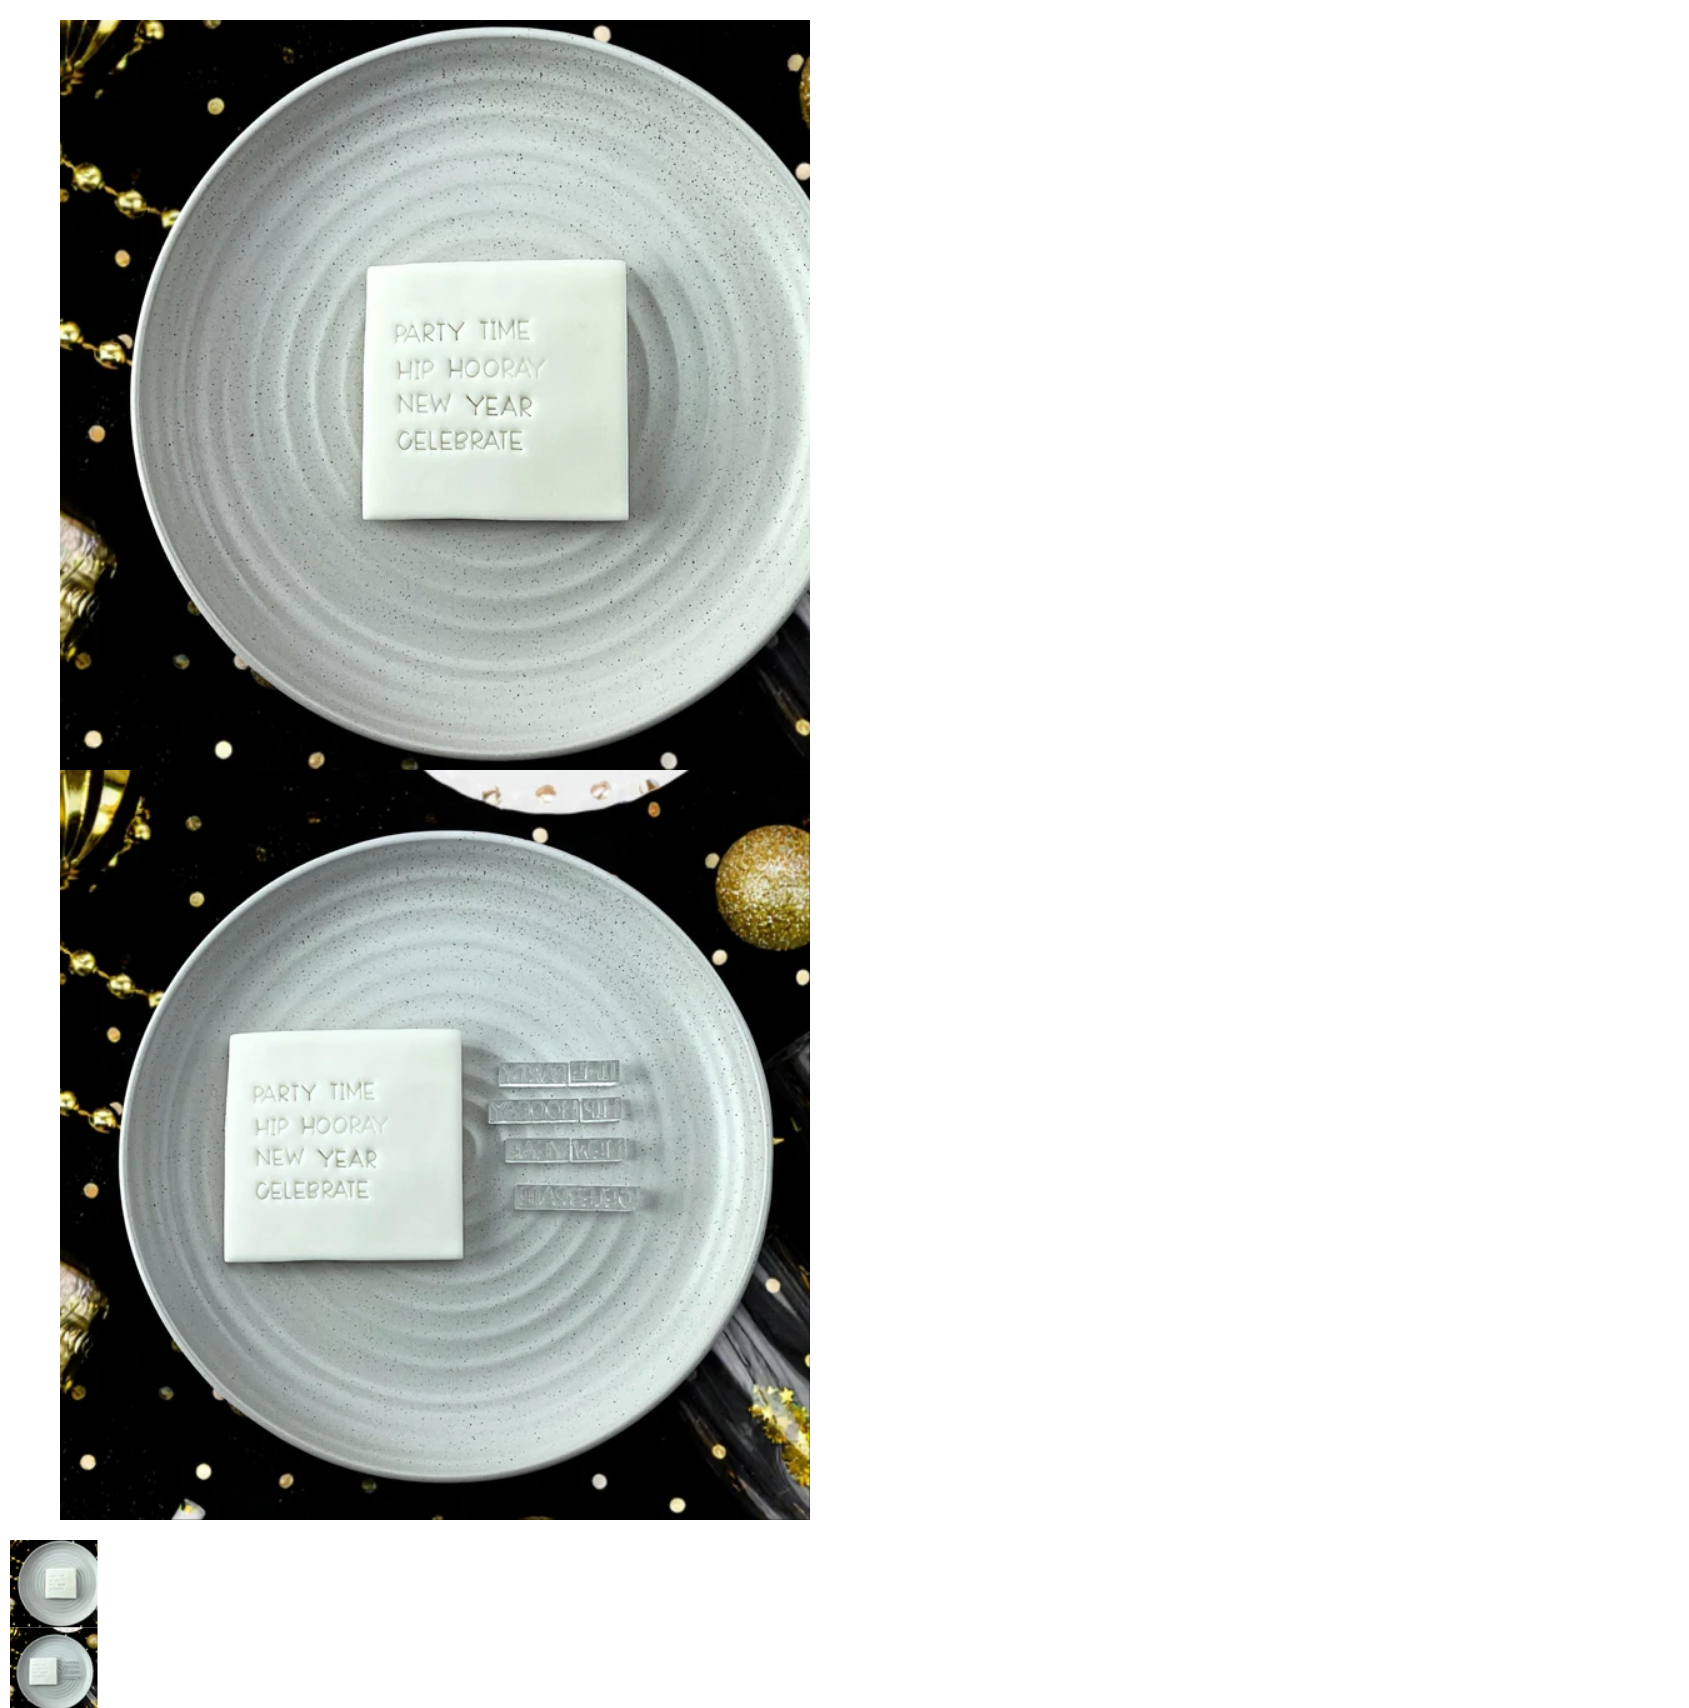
#include <cairo.h>
#include <math.h>
#include <stddef.h>


static void picture(cairo_t *cr, const char *path, double x, double y, double w, double h) {
    cairo_surface_t *image = cairo_image_surface_create_from_png(path);
    cairo_save(cr);
    cairo_set_source_surface(cr, image, x, y);
    cairo_rectangle(cr, x, y, w, h);
    cairo_fill(cr);
    cairo_restore(cr);
    cairo_surface_destroy(image);
}

int main(void) {
    cairo_surface_t *surface = cairo_image_surface_create(CAIRO_FORMAT_RGB24, 1689, 1708);
    cairo_t *cr = cairo_create(surface);
    cairo_font_options_t *options = cairo_font_options_create();
    cairo_font_options_set_hint_metrics(options, CAIRO_HINT_METRICS_OFF);
    cairo_font_options_set_hint_style(options, CAIRO_HINT_STYLE_NONE);
    cairo_set_font_options(cr, options);
    cairo_set_miter_limit(cr, 4);
    cairo_set_source_rgb(cr, 1, 1, 1);
    cairo_paint(cr);
    picture(cr, "img1.png", 60, 20, 750, 750);
    picture(cr, "img2.png", 60, 770, 750, 750);
    picture(cr, "img3.png", 10, 1540, 88, 88);
    picture(cr, "img4.png", 10, 1627, 88, 81);
    cairo_surface_write_to_png(surface, "page.png");
    cairo_font_options_destroy(options);
    cairo_destroy(cr);
    cairo_surface_destroy(surface);
    return 0;
}
